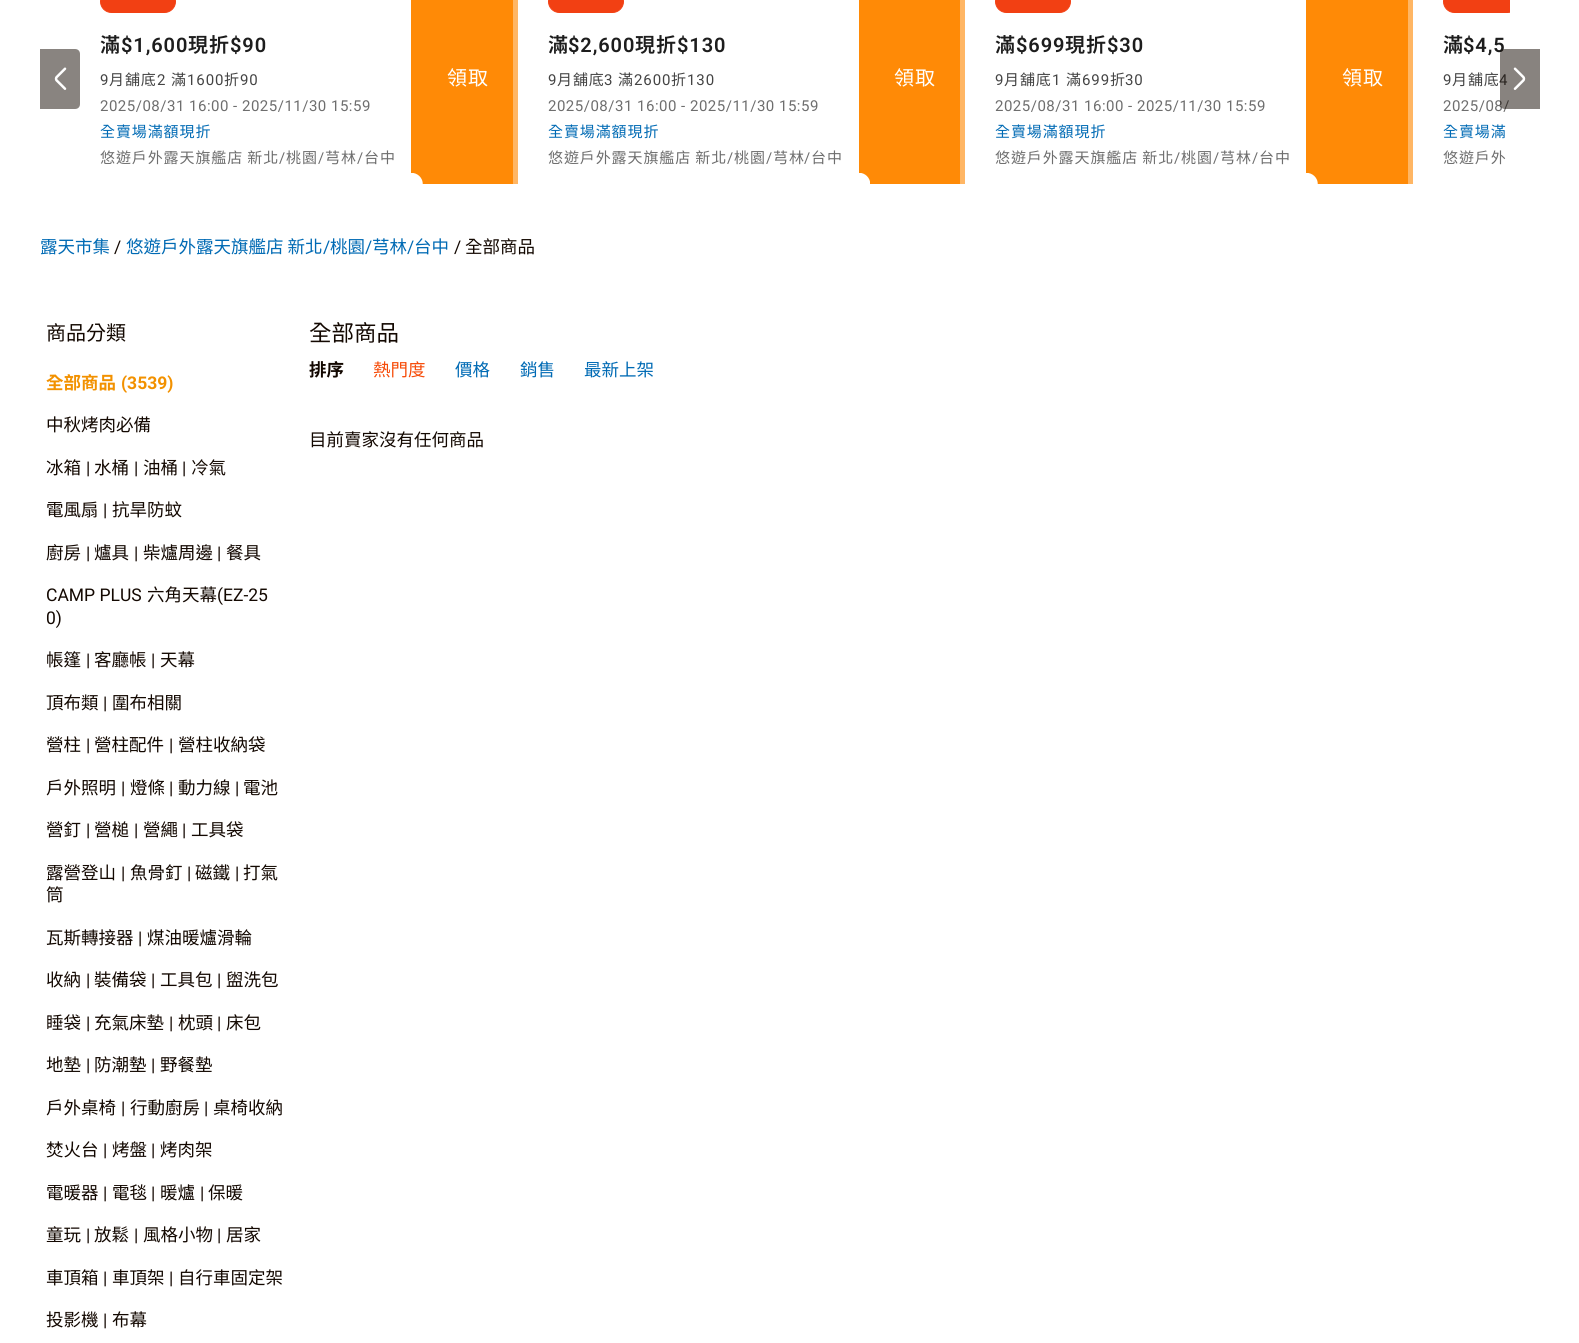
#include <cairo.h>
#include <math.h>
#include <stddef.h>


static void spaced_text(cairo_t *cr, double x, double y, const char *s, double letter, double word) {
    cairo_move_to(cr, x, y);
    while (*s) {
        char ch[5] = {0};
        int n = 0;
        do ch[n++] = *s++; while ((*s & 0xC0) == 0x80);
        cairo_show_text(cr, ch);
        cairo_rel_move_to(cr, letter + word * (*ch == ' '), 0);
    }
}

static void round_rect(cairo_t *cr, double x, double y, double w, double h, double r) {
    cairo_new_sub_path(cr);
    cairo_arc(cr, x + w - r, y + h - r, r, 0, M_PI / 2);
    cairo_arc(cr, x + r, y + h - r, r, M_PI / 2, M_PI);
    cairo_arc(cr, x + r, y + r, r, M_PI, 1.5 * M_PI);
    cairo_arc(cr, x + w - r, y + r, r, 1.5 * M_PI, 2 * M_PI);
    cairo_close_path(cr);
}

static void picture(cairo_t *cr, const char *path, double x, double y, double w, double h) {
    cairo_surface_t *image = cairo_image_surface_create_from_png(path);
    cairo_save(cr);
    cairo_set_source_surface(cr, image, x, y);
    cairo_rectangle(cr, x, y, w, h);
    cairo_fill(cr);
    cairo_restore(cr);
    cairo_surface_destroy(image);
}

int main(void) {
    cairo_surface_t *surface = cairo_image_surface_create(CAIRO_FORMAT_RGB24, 1579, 1343);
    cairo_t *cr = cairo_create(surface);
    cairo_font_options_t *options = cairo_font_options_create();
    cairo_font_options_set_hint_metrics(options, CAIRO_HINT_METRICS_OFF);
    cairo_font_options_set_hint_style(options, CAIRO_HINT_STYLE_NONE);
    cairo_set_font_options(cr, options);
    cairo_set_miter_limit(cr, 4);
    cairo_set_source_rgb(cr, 1, 1, 1);
    cairo_paint(cr);
    cairo_set_source_rgb(cr, 0.537, 0.518, 0.502);
    cairo_new_path(cr);
    cairo_move_to(cr, 40, 49);
    cairo_line_to(cr, 75, 49);
    cairo_curve_to(cr, 78, 49, 80, 51, 80, 54);
    cairo_line_to(cr, 80, 104);
    cairo_curve_to(cr, 80, 107, 78, 109, 75, 109);
    cairo_line_to(cr, 40, 109);
    cairo_close_path(cr);
    cairo_fill(cr);
    picture(cr, "img1.png", 54, 67, 13, 23);
    cairo_set_source_rgb(cr, 0.949, 0.251, 0.075);
    round_rect(cr, 100.5, -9.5, 75, 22, 11);
    cairo_fill_preserve(cr);
    cairo_set_line_width(cr, 1);
    cairo_stroke(cr);
    cairo_select_font_face(cr, "Noto Sans TC SemiBold", CAIRO_FONT_SLANT_NORMAL, CAIRO_FONT_WEIGHT_NORMAL);
    cairo_set_font_size(cr, 20);
    cairo_set_source_rgb(cr, 0.114, 0.114, 0.114);
    spaced_text(cr, 100, 52, "滿", 0.9, 0);
    cairo_select_font_face(cr, "Roboto SemiBold", CAIRO_FONT_SLANT_NORMAL, CAIRO_FONT_WEIGHT_NORMAL);
    spaced_text(cr, 121, 52, "$1,600", 0.9, 0);
    cairo_select_font_face(cr, "Noto Sans TC SemiBold", CAIRO_FONT_SLANT_NORMAL, CAIRO_FONT_WEIGHT_NORMAL);
    spaced_text(cr, 188, 52, "現折", 0.9, 0);
    cairo_select_font_face(cr, "Roboto SemiBold", CAIRO_FONT_SLANT_NORMAL, CAIRO_FONT_WEIGHT_NORMAL);
    spaced_text(cr, 230, 52, "$90", 0.9, 0);
    cairo_select_font_face(cr, "Roboto", CAIRO_FONT_SLANT_NORMAL, CAIRO_FONT_WEIGHT_NORMAL);
    cairo_set_font_size(cr, 15);
    cairo_set_source_rgb(cr, 0.267, 0.267, 0.267);
    spaced_text(cr, 100, 85, "9", 0.9, 0);
    cairo_select_font_face(cr, "Noto Sans TC", CAIRO_FONT_SLANT_NORMAL, CAIRO_FONT_WEIGHT_NORMAL);
    spaced_text(cr, 109, 85, "月舖底", 0.9, 0);
    cairo_select_font_face(cr, "Roboto", CAIRO_FONT_SLANT_NORMAL, CAIRO_FONT_WEIGHT_NORMAL);
    spaced_text(cr, 157, 85, "2", 0.9, 0);
    cairo_select_font_face(cr, "Noto Sans TC", CAIRO_FONT_SLANT_NORMAL, CAIRO_FONT_WEIGHT_NORMAL);
    spaced_text(cr, 171, 85, "滿", 0.9, 0);
    cairo_select_font_face(cr, "Roboto", CAIRO_FONT_SLANT_NORMAL, CAIRO_FONT_WEIGHT_NORMAL);
    spaced_text(cr, 187, 85, "1600", 0.9, 0);
    cairo_select_font_face(cr, "Noto Sans TC", CAIRO_FONT_SLANT_NORMAL, CAIRO_FONT_WEIGHT_NORMAL);
    spaced_text(cr, 224, 85, "折", 0.9, 0);
    cairo_select_font_face(cr, "Roboto", CAIRO_FONT_SLANT_NORMAL, CAIRO_FONT_WEIGHT_NORMAL);
    spaced_text(cr, 240, 85, "90", 0.9, 0);
    cairo_set_source_rgb(cr, 0.431, 0.431, 0.431);
    spaced_text(cr, 100, 111, "2025/08/31 16:00 - 2025/11/30 15:59", 0.5, 0);
    cairo_select_font_face(cr, "Noto Sans TC", CAIRO_FONT_SLANT_NORMAL, CAIRO_FONT_WEIGHT_NORMAL);
    cairo_set_source_rgb(cr, 0, 0.416, 0.706);
    spaced_text(cr, 100, 137, "全賣場滿額現折", 0.9, 0);
    cairo_set_source_rgb(cr, 0.431, 0.431, 0.431);
    spaced_text(cr, 100, 163, "悠遊戶外露天旗艦店 新北", 0.9, 0);
    cairo_select_font_face(cr, "Roboto", CAIRO_FONT_SLANT_NORMAL, CAIRO_FONT_WEIGHT_NORMAL);
    spaced_text(cr, 279, 163, "/", 0.9, 0);
    cairo_select_font_face(cr, "Noto Sans TC", CAIRO_FONT_SLANT_NORMAL, CAIRO_FONT_WEIGHT_NORMAL);
    spaced_text(cr, 286, 163, "桃園", 0.9, 0);
    cairo_select_font_face(cr, "Roboto", CAIRO_FONT_SLANT_NORMAL, CAIRO_FONT_WEIGHT_NORMAL);
    spaced_text(cr, 318, 163, "/", 0.9, 0);
    cairo_select_font_face(cr, "Noto Sans TC", CAIRO_FONT_SLANT_NORMAL, CAIRO_FONT_WEIGHT_NORMAL);
    spaced_text(cr, 325, 163, "芎林", 0.9, 0);
    cairo_select_font_face(cr, "Roboto", CAIRO_FONT_SLANT_NORMAL, CAIRO_FONT_WEIGHT_NORMAL);
    spaced_text(cr, 357, 163, "/", 0.9, 0);
    cairo_select_font_face(cr, "Noto Sans TC", CAIRO_FONT_SLANT_NORMAL, CAIRO_FONT_WEIGHT_NORMAL);
    spaced_text(cr, 364, 163, "台中", 0.9, 0);
    cairo_set_source_rgb(cr, 1, 0.541, 0.027);
    cairo_rectangle(cr, 411, 0, 12, 173);
    cairo_fill(cr);
    cairo_rectangle(cr, 423, 0, 90, 184);
    cairo_fill(cr);
    cairo_new_path(cr);
    cairo_move_to(cr, 411, 169);
    cairo_curve_to(cr, 419.5, 169, 426.5, 175.5, 426.5, 184);
    cairo_set_line_width(cr, 7.5);
    cairo_stroke(cr);
    cairo_set_font_size(cr, 20);
    cairo_set_source_rgb(cr, 1, 1, 1);
    spaced_text(cr, 447, 85, "領取", 0.9, 0);
    cairo_set_source_rgb(cr, 1, 0.714, 0.392);
    cairo_rectangle(cr, 513, 0, 5, 184);
    cairo_fill(cr);
    cairo_set_source_rgb(cr, 0.949, 0.251, 0.075);
    round_rect(cr, 548.5, -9.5, 75, 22, 11);
    cairo_fill_preserve(cr);
    cairo_set_line_width(cr, 1);
    cairo_stroke(cr);
    cairo_select_font_face(cr, "Noto Sans TC SemiBold", CAIRO_FONT_SLANT_NORMAL, CAIRO_FONT_WEIGHT_NORMAL);
    cairo_set_source_rgb(cr, 0.114, 0.114, 0.114);
    spaced_text(cr, 548, 52, "滿", 0.9, 0);
    cairo_select_font_face(cr, "Roboto SemiBold", CAIRO_FONT_SLANT_NORMAL, CAIRO_FONT_WEIGHT_NORMAL);
    spaced_text(cr, 568, 52, "$2,600", 0.9, 0);
    cairo_select_font_face(cr, "Noto Sans TC SemiBold", CAIRO_FONT_SLANT_NORMAL, CAIRO_FONT_WEIGHT_NORMAL);
    spaced_text(cr, 635, 52, "現折", 0.9, 0);
    cairo_select_font_face(cr, "Roboto SemiBold", CAIRO_FONT_SLANT_NORMAL, CAIRO_FONT_WEIGHT_NORMAL);
    spaced_text(cr, 677, 52, "$130", 0.9, 0);
    cairo_select_font_face(cr, "Roboto", CAIRO_FONT_SLANT_NORMAL, CAIRO_FONT_WEIGHT_NORMAL);
    cairo_set_font_size(cr, 15);
    cairo_set_source_rgb(cr, 0.267, 0.267, 0.267);
    spaced_text(cr, 548, 85, "9", 0.9, 0);
    cairo_select_font_face(cr, "Noto Sans TC", CAIRO_FONT_SLANT_NORMAL, CAIRO_FONT_WEIGHT_NORMAL);
    spaced_text(cr, 557, 85, "月舖底", 0.9, 0);
    cairo_select_font_face(cr, "Roboto", CAIRO_FONT_SLANT_NORMAL, CAIRO_FONT_WEIGHT_NORMAL);
    spaced_text(cr, 604, 85, "3", 0.9, 0);
    cairo_select_font_face(cr, "Noto Sans TC", CAIRO_FONT_SLANT_NORMAL, CAIRO_FONT_WEIGHT_NORMAL);
    spaced_text(cr, 618, 85, "滿", 0.9, 0);
    cairo_select_font_face(cr, "Roboto", CAIRO_FONT_SLANT_NORMAL, CAIRO_FONT_WEIGHT_NORMAL);
    spaced_text(cr, 634, 85, "2600", 0.9, 0);
    cairo_select_font_face(cr, "Noto Sans TC", CAIRO_FONT_SLANT_NORMAL, CAIRO_FONT_WEIGHT_NORMAL);
    spaced_text(cr, 671, 85, "折", 0.9, 0);
    cairo_select_font_face(cr, "Roboto", CAIRO_FONT_SLANT_NORMAL, CAIRO_FONT_WEIGHT_NORMAL);
    spaced_text(cr, 687, 85, "130", 0.9, 0);
    cairo_set_source_rgb(cr, 0.431, 0.431, 0.431);
    spaced_text(cr, 548, 111, "2025/08/31 16:00 - 2025/11/30 15:59", 0.5, 0);
    cairo_select_font_face(cr, "Noto Sans TC", CAIRO_FONT_SLANT_NORMAL, CAIRO_FONT_WEIGHT_NORMAL);
    cairo_set_source_rgb(cr, 0, 0.416, 0.706);
    spaced_text(cr, 548, 137, "全賣場滿額現折", 0.9, 0);
    cairo_set_source_rgb(cr, 0.431, 0.431, 0.431);
    spaced_text(cr, 548, 163, "悠遊戶外露天旗艦店 新北", 0.9, 0);
    cairo_select_font_face(cr, "Roboto", CAIRO_FONT_SLANT_NORMAL, CAIRO_FONT_WEIGHT_NORMAL);
    spaced_text(cr, 727, 163, "/", 0.9, 0);
    cairo_select_font_face(cr, "Noto Sans TC", CAIRO_FONT_SLANT_NORMAL, CAIRO_FONT_WEIGHT_NORMAL);
    spaced_text(cr, 734, 163, "桃園", 0.9, 0);
    cairo_select_font_face(cr, "Roboto", CAIRO_FONT_SLANT_NORMAL, CAIRO_FONT_WEIGHT_NORMAL);
    spaced_text(cr, 766, 163, "/", 0.9, 0);
    cairo_select_font_face(cr, "Noto Sans TC", CAIRO_FONT_SLANT_NORMAL, CAIRO_FONT_WEIGHT_NORMAL);
    spaced_text(cr, 773, 163, "芎林", 0.9, 0);
    cairo_select_font_face(cr, "Roboto", CAIRO_FONT_SLANT_NORMAL, CAIRO_FONT_WEIGHT_NORMAL);
    spaced_text(cr, 804, 163, "/", 0.9, 0);
    cairo_select_font_face(cr, "Noto Sans TC", CAIRO_FONT_SLANT_NORMAL, CAIRO_FONT_WEIGHT_NORMAL);
    spaced_text(cr, 811, 163, "台中", 0.9, 0);
    cairo_set_source_rgb(cr, 1, 0.541, 0.027);
    cairo_rectangle(cr, 859, 0, 11, 173);
    cairo_fill(cr);
    cairo_rectangle(cr, 870, 0, 90, 184);
    cairo_fill(cr);
    cairo_new_path(cr);
    cairo_move_to(cr, 859, 169);
    cairo_curve_to(cr, 867, 169, 874, 175.5, 874, 184);
    cairo_set_line_width(cr, 7.5);
    cairo_stroke(cr);
    cairo_set_font_size(cr, 20);
    cairo_set_source_rgb(cr, 1, 1, 1);
    spaced_text(cr, 894, 85, "領取", 0.9, 0);
    cairo_set_source_rgb(cr, 1, 0.714, 0.392);
    cairo_rectangle(cr, 960, 0, 5, 184);
    cairo_fill(cr);
    cairo_set_source_rgb(cr, 0.949, 0.251, 0.075);
    round_rect(cr, 995.5, -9.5, 75, 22, 11);
    cairo_fill_preserve(cr);
    cairo_set_line_width(cr, 1);
    cairo_stroke(cr);
    cairo_select_font_face(cr, "Noto Sans TC SemiBold", CAIRO_FONT_SLANT_NORMAL, CAIRO_FONT_WEIGHT_NORMAL);
    cairo_set_source_rgb(cr, 0.114, 0.114, 0.114);
    spaced_text(cr, 995, 52, "滿", 0.9, 0);
    cairo_select_font_face(cr, "Roboto SemiBold", CAIRO_FONT_SLANT_NORMAL, CAIRO_FONT_WEIGHT_NORMAL);
    spaced_text(cr, 1016, 52, "$699", 0.9, 0);
    cairo_select_font_face(cr, "Noto Sans TC SemiBold", CAIRO_FONT_SLANT_NORMAL, CAIRO_FONT_WEIGHT_NORMAL);
    spaced_text(cr, 1065, 52, "現折", 0.9, 0);
    cairo_select_font_face(cr, "Roboto SemiBold", CAIRO_FONT_SLANT_NORMAL, CAIRO_FONT_WEIGHT_NORMAL);
    spaced_text(cr, 1107, 52, "$30", 0.9, 0);
    cairo_select_font_face(cr, "Roboto", CAIRO_FONT_SLANT_NORMAL, CAIRO_FONT_WEIGHT_NORMAL);
    cairo_set_font_size(cr, 15);
    cairo_set_source_rgb(cr, 0.267, 0.267, 0.267);
    spaced_text(cr, 995, 85, "9", 0.9, 0);
    cairo_select_font_face(cr, "Noto Sans TC", CAIRO_FONT_SLANT_NORMAL, CAIRO_FONT_WEIGHT_NORMAL);
    spaced_text(cr, 1004, 85, "月舖底", 0.9, 0);
    cairo_select_font_face(cr, "Roboto", CAIRO_FONT_SLANT_NORMAL, CAIRO_FONT_WEIGHT_NORMAL);
    spaced_text(cr, 1052, 85, "1", 0.9, 0);
    cairo_select_font_face(cr, "Noto Sans TC", CAIRO_FONT_SLANT_NORMAL, CAIRO_FONT_WEIGHT_NORMAL);
    spaced_text(cr, 1066, 85, "滿", 0.9, 0);
    cairo_select_font_face(cr, "Roboto", CAIRO_FONT_SLANT_NORMAL, CAIRO_FONT_WEIGHT_NORMAL);
    spaced_text(cr, 1082, 85, "699", 0.9, 0);
    cairo_select_font_face(cr, "Noto Sans TC", CAIRO_FONT_SLANT_NORMAL, CAIRO_FONT_WEIGHT_NORMAL);
    spaced_text(cr, 1110, 85, "折", 0.9, 0);
    cairo_select_font_face(cr, "Roboto", CAIRO_FONT_SLANT_NORMAL, CAIRO_FONT_WEIGHT_NORMAL);
    spaced_text(cr, 1125, 85, "30", 0.9, 0);
    cairo_set_source_rgb(cr, 0.431, 0.431, 0.431);
    spaced_text(cr, 995, 111, "2025/08/31 16:00 - 2025/11/30 15:59", 0.5, 0);
    cairo_select_font_face(cr, "Noto Sans TC", CAIRO_FONT_SLANT_NORMAL, CAIRO_FONT_WEIGHT_NORMAL);
    cairo_set_source_rgb(cr, 0, 0.416, 0.706);
    spaced_text(cr, 995, 137, "全賣場滿額現折", 0.9, 0);
    cairo_set_source_rgb(cr, 0.431, 0.431, 0.431);
    spaced_text(cr, 995, 163, "悠遊戶外露天旗艦店 新北", 0.9, 0);
    cairo_select_font_face(cr, "Roboto", CAIRO_FONT_SLANT_NORMAL, CAIRO_FONT_WEIGHT_NORMAL);
    spaced_text(cr, 1174, 163, "/", 0.9, 0);
    cairo_select_font_face(cr, "Noto Sans TC", CAIRO_FONT_SLANT_NORMAL, CAIRO_FONT_WEIGHT_NORMAL);
    spaced_text(cr, 1181, 163, "桃園", 0.9, 0);
    cairo_select_font_face(cr, "Roboto", CAIRO_FONT_SLANT_NORMAL, CAIRO_FONT_WEIGHT_NORMAL);
    spaced_text(cr, 1213, 163, "/", 0.9, 0);
    cairo_select_font_face(cr, "Noto Sans TC", CAIRO_FONT_SLANT_NORMAL, CAIRO_FONT_WEIGHT_NORMAL);
    spaced_text(cr, 1220, 163, "芎林", 0.9, 0);
    cairo_select_font_face(cr, "Roboto", CAIRO_FONT_SLANT_NORMAL, CAIRO_FONT_WEIGHT_NORMAL);
    spaced_text(cr, 1252, 163, "/", 0.9, 0);
    cairo_select_font_face(cr, "Noto Sans TC", CAIRO_FONT_SLANT_NORMAL, CAIRO_FONT_WEIGHT_NORMAL);
    spaced_text(cr, 1259, 163, "台中", 0.9, 0);
    cairo_set_source_rgb(cr, 1, 0.541, 0.027);
    cairo_rectangle(cr, 1306, 0, 12, 173);
    cairo_fill(cr);
    cairo_rectangle(cr, 1318, 0, 90, 184);
    cairo_fill(cr);
    cairo_new_path(cr);
    cairo_move_to(cr, 1306, 169);
    cairo_curve_to(cr, 1314.5, 169, 1321.5, 175.5, 1321.5, 184);
    cairo_set_line_width(cr, 7.5);
    cairo_stroke(cr);
    cairo_set_font_size(cr, 20);
    cairo_set_source_rgb(cr, 1, 1, 1);
    spaced_text(cr, 1342, 85, "領取", 0.9, 0);
    cairo_set_source_rgb(cr, 1, 0.714, 0.392);
    cairo_rectangle(cr, 1408, 0, 5, 184);
    cairo_fill(cr);
    cairo_save(cr);
    cairo_rectangle(cr, 70, 0, 1440, 199);
    cairo_clip(cr);
    cairo_set_source_rgb(cr, 0.949, 0.251, 0.075);
    round_rect(cr, 1443.5, -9.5, 75, 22, 11);
    cairo_fill_preserve(cr);
    cairo_set_line_width(cr, 1);
    cairo_stroke(cr);
    cairo_restore(cr);
    cairo_select_font_face(cr, "Noto Sans TC SemiBold", CAIRO_FONT_SLANT_NORMAL, CAIRO_FONT_WEIGHT_NORMAL);
    cairo_set_source_rgb(cr, 0.114, 0.114, 0.114);
    spaced_text(cr, 1443, 52, "滿", 0.9, 0);
    cairo_select_font_face(cr, "Roboto SemiBold", CAIRO_FONT_SLANT_NORMAL, CAIRO_FONT_WEIGHT_NORMAL);
    spaced_text(cr, 1463, 52, "$4,5", 0.9, 0);
    cairo_select_font_face(cr, "Roboto", CAIRO_FONT_SLANT_NORMAL, CAIRO_FONT_WEIGHT_NORMAL);
    cairo_set_font_size(cr, 15);
    cairo_set_source_rgb(cr, 0.267, 0.267, 0.267);
    spaced_text(cr, 1443, 85, "9", 0.9, 0);
    cairo_select_font_face(cr, "Noto Sans TC", CAIRO_FONT_SLANT_NORMAL, CAIRO_FONT_WEIGHT_NORMAL);
    spaced_text(cr, 1452, 85, "月舖底", 0.9, 0);
    cairo_select_font_face(cr, "Roboto", CAIRO_FONT_SLANT_NORMAL, CAIRO_FONT_WEIGHT_NORMAL);
    spaced_text(cr, 1499, 85, "4", 0.9, 0);
    cairo_set_source_rgb(cr, 0.431, 0.431, 0.431);
    spaced_text(cr, 1443, 111, "2025/08/", 0.5, 0);
    cairo_select_font_face(cr, "Noto Sans TC", CAIRO_FONT_SLANT_NORMAL, CAIRO_FONT_WEIGHT_NORMAL);
    cairo_set_source_rgb(cr, 0, 0.416, 0.706);
    spaced_text(cr, 1443, 137, "全賣場滿", 0.9, 0);
    cairo_set_source_rgb(cr, 0.431, 0.431, 0.431);
    spaced_text(cr, 1443, 163, "悠遊戶外", 0.9, 0);
    cairo_set_source_rgba(cr, 0.075, 0.035, 0.004, 0.5);
    cairo_new_path(cr);
    cairo_move_to(cr, 1505, 49);
    cairo_line_to(cr, 1540, 49);
    cairo_line_to(cr, 1540, 109);
    cairo_line_to(cr, 1505, 109);
    cairo_curve_to(cr, 1502, 109, 1500, 107, 1500, 104);
    cairo_line_to(cr, 1500, 54);
    cairo_curve_to(cr, 1500, 51, 1502, 49, 1505, 49);
    cairo_close_path(cr);
    cairo_fill(cr);
    picture(cr, "img2.png", 1513, 67, 13, 23);
    cairo_set_font_size(cr, 17.5);
    cairo_set_source_rgb(cr, 0, 0.416, 0.706);
    cairo_move_to(cr, 40, 253);
    cairo_show_text(cr, "露天市集");
    cairo_select_font_face(cr, "Roboto", CAIRO_FONT_SLANT_NORMAL, CAIRO_FONT_WEIGHT_NORMAL);
    cairo_set_source_rgb(cr, 0.075, 0.035, 0.004);
    cairo_move_to(cr, 114, 253);
    cairo_show_text(cr, "/");
    cairo_select_font_face(cr, "Noto Sans TC", CAIRO_FONT_SLANT_NORMAL, CAIRO_FONT_WEIGHT_NORMAL);
    cairo_set_source_rgb(cr, 0, 0.416, 0.706);
    cairo_move_to(cr, 126, 253);
    cairo_show_text(cr, "悠遊戶外露天旗艦店 新北");
    cairo_select_font_face(cr, "Roboto", CAIRO_FONT_SLANT_NORMAL, CAIRO_FONT_WEIGHT_NORMAL);
    cairo_move_to(cr, 323, 253);
    cairo_show_text(cr, "/");
    cairo_select_font_face(cr, "Noto Sans TC", CAIRO_FONT_SLANT_NORMAL, CAIRO_FONT_WEIGHT_NORMAL);
    cairo_move_to(cr, 330, 253);
    cairo_show_text(cr, "桃園");
    cairo_select_font_face(cr, "Roboto", CAIRO_FONT_SLANT_NORMAL, CAIRO_FONT_WEIGHT_NORMAL);
    cairo_move_to(cr, 365, 253);
    cairo_show_text(cr, "/");
    cairo_select_font_face(cr, "Noto Sans TC", CAIRO_FONT_SLANT_NORMAL, CAIRO_FONT_WEIGHT_NORMAL);
    cairo_move_to(cr, 372, 253);
    cairo_show_text(cr, "芎林");
    cairo_select_font_face(cr, "Roboto", CAIRO_FONT_SLANT_NORMAL, CAIRO_FONT_WEIGHT_NORMAL);
    cairo_move_to(cr, 407, 253);
    cairo_show_text(cr, "/");
    cairo_select_font_face(cr, "Noto Sans TC", CAIRO_FONT_SLANT_NORMAL, CAIRO_FONT_WEIGHT_NORMAL);
    cairo_move_to(cr, 414, 253);
    cairo_show_text(cr, "台中");
    cairo_select_font_face(cr, "Roboto", CAIRO_FONT_SLANT_NORMAL, CAIRO_FONT_WEIGHT_NORMAL);
    cairo_set_source_rgb(cr, 0.075, 0.035, 0.004);
    cairo_move_to(cr, 454, 253);
    cairo_show_text(cr, "/");
    cairo_select_font_face(cr, "Noto Sans TC", CAIRO_FONT_SLANT_NORMAL, CAIRO_FONT_WEIGHT_NORMAL);
    cairo_move_to(cr, 465, 253);
    cairo_show_text(cr, "全部商品");
    cairo_set_font_size(cr, 20);
    cairo_move_to(cr, 46, 340);
    cairo_show_text(cr, "商品分類");
    cairo_select_font_face(cr, "Noto Sans TC", CAIRO_FONT_SLANT_NORMAL, CAIRO_FONT_WEIGHT_BOLD);
    cairo_set_font_size(cr, 17.5);
    cairo_set_source_rgb(cr, 0.949, 0.569, 0);
    cairo_move_to(cr, 46, 389);
    cairo_show_text(cr, "全部商品");
    cairo_select_font_face(cr, "Roboto", CAIRO_FONT_SLANT_NORMAL, CAIRO_FONT_WEIGHT_BOLD);
    cairo_move_to(cr, 121, 389);
    cairo_show_text(cr, "(3539)");
    cairo_select_font_face(cr, "Noto Sans TC", CAIRO_FONT_SLANT_NORMAL, CAIRO_FONT_WEIGHT_NORMAL);
    cairo_set_source_rgb(cr, 0.075, 0.035, 0.004);
    cairo_move_to(cr, 46, 431);
    cairo_show_text(cr, "中秋烤肉必備");
    cairo_move_to(cr, 46, 474);
    cairo_show_text(cr, "冰箱");
    cairo_select_font_face(cr, "Roboto", CAIRO_FONT_SLANT_NORMAL, CAIRO_FONT_WEIGHT_NORMAL);
    cairo_move_to(cr, 86, 474);
    cairo_show_text(cr, "|");
    cairo_select_font_face(cr, "Noto Sans TC", CAIRO_FONT_SLANT_NORMAL, CAIRO_FONT_WEIGHT_NORMAL);
    cairo_move_to(cr, 94, 474);
    cairo_show_text(cr, "水桶");
    cairo_select_font_face(cr, "Roboto", CAIRO_FONT_SLANT_NORMAL, CAIRO_FONT_WEIGHT_NORMAL);
    cairo_move_to(cr, 134, 474);
    cairo_show_text(cr, "|");
    cairo_select_font_face(cr, "Noto Sans TC", CAIRO_FONT_SLANT_NORMAL, CAIRO_FONT_WEIGHT_NORMAL);
    cairo_move_to(cr, 143, 474);
    cairo_show_text(cr, "油桶");
    cairo_select_font_face(cr, "Roboto", CAIRO_FONT_SLANT_NORMAL, CAIRO_FONT_WEIGHT_NORMAL);
    cairo_move_to(cr, 182, 474);
    cairo_show_text(cr, "|");
    cairo_select_font_face(cr, "Noto Sans TC", CAIRO_FONT_SLANT_NORMAL, CAIRO_FONT_WEIGHT_NORMAL);
    cairo_move_to(cr, 191, 474);
    cairo_show_text(cr, "冷氣");
    cairo_move_to(cr, 46, 516);
    cairo_show_text(cr, "電風扇");
    cairo_select_font_face(cr, "Roboto", CAIRO_FONT_SLANT_NORMAL, CAIRO_FONT_WEIGHT_NORMAL);
    cairo_move_to(cr, 103, 516);
    cairo_show_text(cr, "|");
    cairo_select_font_face(cr, "Noto Sans TC", CAIRO_FONT_SLANT_NORMAL, CAIRO_FONT_WEIGHT_NORMAL);
    cairo_move_to(cr, 112, 516);
    cairo_show_text(cr, "抗旱防蚊");
    cairo_move_to(cr, 46, 559);
    cairo_show_text(cr, "廚房");
    cairo_select_font_face(cr, "Roboto", CAIRO_FONT_SLANT_NORMAL, CAIRO_FONT_WEIGHT_NORMAL);
    cairo_move_to(cr, 86, 559);
    cairo_show_text(cr, "|");
    cairo_select_font_face(cr, "Noto Sans TC", CAIRO_FONT_SLANT_NORMAL, CAIRO_FONT_WEIGHT_NORMAL);
    cairo_move_to(cr, 94, 559);
    cairo_show_text(cr, "爐具");
    cairo_select_font_face(cr, "Roboto", CAIRO_FONT_SLANT_NORMAL, CAIRO_FONT_WEIGHT_NORMAL);
    cairo_move_to(cr, 134, 559);
    cairo_show_text(cr, "|");
    cairo_select_font_face(cr, "Noto Sans TC", CAIRO_FONT_SLANT_NORMAL, CAIRO_FONT_WEIGHT_NORMAL);
    cairo_move_to(cr, 143, 559);
    cairo_show_text(cr, "柴爐周邊");
    cairo_select_font_face(cr, "Roboto", CAIRO_FONT_SLANT_NORMAL, CAIRO_FONT_WEIGHT_NORMAL);
    cairo_move_to(cr, 217, 559);
    cairo_show_text(cr, "|");
    cairo_select_font_face(cr, "Noto Sans TC", CAIRO_FONT_SLANT_NORMAL, CAIRO_FONT_WEIGHT_NORMAL);
    cairo_move_to(cr, 226, 559);
    cairo_show_text(cr, "餐具");
    cairo_select_font_face(cr, "Roboto", CAIRO_FONT_SLANT_NORMAL, CAIRO_FONT_WEIGHT_NORMAL);
    cairo_move_to(cr, 46, 601);
    cairo_show_text(cr, "CAMP PLUS");
    cairo_select_font_face(cr, "Noto Sans TC", CAIRO_FONT_SLANT_NORMAL, CAIRO_FONT_WEIGHT_NORMAL);
    cairo_move_to(cr, 147, 601);
    cairo_show_text(cr, "六角天幕");
    cairo_select_font_face(cr, "Roboto", CAIRO_FONT_SLANT_NORMAL, CAIRO_FONT_WEIGHT_NORMAL);
    cairo_move_to(cr, 217, 601);
    cairo_show_text(cr, "(EZ-25");
    cairo_move_to(cr, 46, 624);
    cairo_show_text(cr, "0)");
    cairo_select_font_face(cr, "Noto Sans TC", CAIRO_FONT_SLANT_NORMAL, CAIRO_FONT_WEIGHT_NORMAL);
    cairo_move_to(cr, 46, 666);
    cairo_show_text(cr, "帳篷");
    cairo_select_font_face(cr, "Roboto", CAIRO_FONT_SLANT_NORMAL, CAIRO_FONT_WEIGHT_NORMAL);
    cairo_move_to(cr, 86, 666);
    cairo_show_text(cr, "|");
    cairo_select_font_face(cr, "Noto Sans TC", CAIRO_FONT_SLANT_NORMAL, CAIRO_FONT_WEIGHT_NORMAL);
    cairo_move_to(cr, 94, 666);
    cairo_show_text(cr, "客廳帳");
    cairo_select_font_face(cr, "Roboto", CAIRO_FONT_SLANT_NORMAL, CAIRO_FONT_WEIGHT_NORMAL);
    cairo_move_to(cr, 151, 666);
    cairo_show_text(cr, "|");
    cairo_select_font_face(cr, "Noto Sans TC", CAIRO_FONT_SLANT_NORMAL, CAIRO_FONT_WEIGHT_NORMAL);
    cairo_move_to(cr, 160, 666);
    cairo_show_text(cr, "天幕");
    cairo_move_to(cr, 46, 709);
    cairo_show_text(cr, "頂布類");
    cairo_select_font_face(cr, "Roboto", CAIRO_FONT_SLANT_NORMAL, CAIRO_FONT_WEIGHT_NORMAL);
    cairo_move_to(cr, 103, 709);
    cairo_show_text(cr, "|");
    cairo_select_font_face(cr, "Noto Sans TC", CAIRO_FONT_SLANT_NORMAL, CAIRO_FONT_WEIGHT_NORMAL);
    cairo_move_to(cr, 112, 709);
    cairo_show_text(cr, "圍布相關");
    cairo_move_to(cr, 46, 751);
    cairo_show_text(cr, "營柱");
    cairo_select_font_face(cr, "Roboto", CAIRO_FONT_SLANT_NORMAL, CAIRO_FONT_WEIGHT_NORMAL);
    cairo_move_to(cr, 86, 751);
    cairo_show_text(cr, "|");
    cairo_select_font_face(cr, "Noto Sans TC", CAIRO_FONT_SLANT_NORMAL, CAIRO_FONT_WEIGHT_NORMAL);
    cairo_move_to(cr, 94, 751);
    cairo_show_text(cr, "營柱配件");
    cairo_select_font_face(cr, "Roboto", CAIRO_FONT_SLANT_NORMAL, CAIRO_FONT_WEIGHT_NORMAL);
    cairo_move_to(cr, 169, 751);
    cairo_show_text(cr, "|");
    cairo_select_font_face(cr, "Noto Sans TC", CAIRO_FONT_SLANT_NORMAL, CAIRO_FONT_WEIGHT_NORMAL);
    cairo_move_to(cr, 178, 751);
    cairo_show_text(cr, "營柱收納袋");
    cairo_move_to(cr, 46, 794);
    cairo_show_text(cr, "戶外照明");
    cairo_select_font_face(cr, "Roboto", CAIRO_FONT_SLANT_NORMAL, CAIRO_FONT_WEIGHT_NORMAL);
    cairo_move_to(cr, 121, 794);
    cairo_show_text(cr, "|");
    cairo_select_font_face(cr, "Noto Sans TC", CAIRO_FONT_SLANT_NORMAL, CAIRO_FONT_WEIGHT_NORMAL);
    cairo_move_to(cr, 130, 794);
    cairo_show_text(cr, "燈條");
    cairo_select_font_face(cr, "Roboto", CAIRO_FONT_SLANT_NORMAL, CAIRO_FONT_WEIGHT_NORMAL);
    cairo_move_to(cr, 169, 794);
    cairo_show_text(cr, "|");
    cairo_select_font_face(cr, "Noto Sans TC", CAIRO_FONT_SLANT_NORMAL, CAIRO_FONT_WEIGHT_NORMAL);
    cairo_move_to(cr, 178, 794);
    cairo_show_text(cr, "動力線");
    cairo_select_font_face(cr, "Roboto", CAIRO_FONT_SLANT_NORMAL, CAIRO_FONT_WEIGHT_NORMAL);
    cairo_move_to(cr, 235, 794);
    cairo_show_text(cr, "|");
    cairo_select_font_face(cr, "Noto Sans TC", CAIRO_FONT_SLANT_NORMAL, CAIRO_FONT_WEIGHT_NORMAL);
    cairo_move_to(cr, 243, 794);
    cairo_show_text(cr, "電池");
    cairo_move_to(cr, 46, 836);
    cairo_show_text(cr, "營釘");
    cairo_select_font_face(cr, "Roboto", CAIRO_FONT_SLANT_NORMAL, CAIRO_FONT_WEIGHT_NORMAL);
    cairo_move_to(cr, 86, 836);
    cairo_show_text(cr, "|");
    cairo_select_font_face(cr, "Noto Sans TC", CAIRO_FONT_SLANT_NORMAL, CAIRO_FONT_WEIGHT_NORMAL);
    cairo_move_to(cr, 94, 836);
    cairo_show_text(cr, "營槌");
    cairo_select_font_face(cr, "Roboto", CAIRO_FONT_SLANT_NORMAL, CAIRO_FONT_WEIGHT_NORMAL);
    cairo_move_to(cr, 134, 836);
    cairo_show_text(cr, "|");
    cairo_select_font_face(cr, "Noto Sans TC", CAIRO_FONT_SLANT_NORMAL, CAIRO_FONT_WEIGHT_NORMAL);
    cairo_move_to(cr, 143, 836);
    cairo_show_text(cr, "營繩");
    cairo_select_font_face(cr, "Roboto", CAIRO_FONT_SLANT_NORMAL, CAIRO_FONT_WEIGHT_NORMAL);
    cairo_move_to(cr, 182, 836);
    cairo_show_text(cr, "|");
    cairo_select_font_face(cr, "Noto Sans TC", CAIRO_FONT_SLANT_NORMAL, CAIRO_FONT_WEIGHT_NORMAL);
    cairo_move_to(cr, 191, 836);
    cairo_show_text(cr, "工具袋");
    cairo_move_to(cr, 46, 879);
    cairo_show_text(cr, "露營登山");
    cairo_select_font_face(cr, "Roboto", CAIRO_FONT_SLANT_NORMAL, CAIRO_FONT_WEIGHT_NORMAL);
    cairo_move_to(cr, 121, 879);
    cairo_show_text(cr, "|");
    cairo_select_font_face(cr, "Noto Sans TC", CAIRO_FONT_SLANT_NORMAL, CAIRO_FONT_WEIGHT_NORMAL);
    cairo_move_to(cr, 130, 879);
    cairo_show_text(cr, "魚骨釘");
    cairo_select_font_face(cr, "Roboto", CAIRO_FONT_SLANT_NORMAL, CAIRO_FONT_WEIGHT_NORMAL);
    cairo_move_to(cr, 187, 879);
    cairo_show_text(cr, "|");
    cairo_select_font_face(cr, "Noto Sans TC", CAIRO_FONT_SLANT_NORMAL, CAIRO_FONT_WEIGHT_NORMAL);
    cairo_move_to(cr, 195, 879);
    cairo_show_text(cr, "磁鐵");
    cairo_select_font_face(cr, "Roboto", CAIRO_FONT_SLANT_NORMAL, CAIRO_FONT_WEIGHT_NORMAL);
    cairo_move_to(cr, 235, 879);
    cairo_show_text(cr, "|");
    cairo_select_font_face(cr, "Noto Sans TC", CAIRO_FONT_SLANT_NORMAL, CAIRO_FONT_WEIGHT_NORMAL);
    cairo_move_to(cr, 243, 879);
    cairo_show_text(cr, "打氣");
    cairo_move_to(cr, 46, 901);
    cairo_show_text(cr, "筒");
    cairo_move_to(cr, 46, 944);
    cairo_show_text(cr, "瓦斯轉接器");
    cairo_select_font_face(cr, "Roboto", CAIRO_FONT_SLANT_NORMAL, CAIRO_FONT_WEIGHT_NORMAL);
    cairo_move_to(cr, 138, 944);
    cairo_show_text(cr, "|");
    cairo_select_font_face(cr, "Noto Sans TC", CAIRO_FONT_SLANT_NORMAL, CAIRO_FONT_WEIGHT_NORMAL);
    cairo_move_to(cr, 147, 944);
    cairo_show_text(cr, "煤油暖爐滑輪");
    cairo_move_to(cr, 46, 986);
    cairo_show_text(cr, "收納");
    cairo_select_font_face(cr, "Roboto", CAIRO_FONT_SLANT_NORMAL, CAIRO_FONT_WEIGHT_NORMAL);
    cairo_move_to(cr, 86, 986);
    cairo_show_text(cr, "|");
    cairo_select_font_face(cr, "Noto Sans TC", CAIRO_FONT_SLANT_NORMAL, CAIRO_FONT_WEIGHT_NORMAL);
    cairo_move_to(cr, 94, 986);
    cairo_show_text(cr, "裝備袋");
    cairo_select_font_face(cr, "Roboto", CAIRO_FONT_SLANT_NORMAL, CAIRO_FONT_WEIGHT_NORMAL);
    cairo_move_to(cr, 151, 986);
    cairo_show_text(cr, "|");
    cairo_select_font_face(cr, "Noto Sans TC", CAIRO_FONT_SLANT_NORMAL, CAIRO_FONT_WEIGHT_NORMAL);
    cairo_move_to(cr, 160, 986);
    cairo_show_text(cr, "工具包");
    cairo_select_font_face(cr, "Roboto", CAIRO_FONT_SLANT_NORMAL, CAIRO_FONT_WEIGHT_NORMAL);
    cairo_move_to(cr, 217, 986);
    cairo_show_text(cr, "|");
    cairo_select_font_face(cr, "Noto Sans TC", CAIRO_FONT_SLANT_NORMAL, CAIRO_FONT_WEIGHT_NORMAL);
    cairo_move_to(cr, 226, 986);
    cairo_show_text(cr, "盥洗包");
    cairo_move_to(cr, 46, 1029);
    cairo_show_text(cr, "睡袋");
    cairo_select_font_face(cr, "Roboto", CAIRO_FONT_SLANT_NORMAL, CAIRO_FONT_WEIGHT_NORMAL);
    cairo_move_to(cr, 86, 1029);
    cairo_show_text(cr, "|");
    cairo_select_font_face(cr, "Noto Sans TC", CAIRO_FONT_SLANT_NORMAL, CAIRO_FONT_WEIGHT_NORMAL);
    cairo_move_to(cr, 94, 1029);
    cairo_show_text(cr, "充氣床墊");
    cairo_select_font_face(cr, "Roboto", CAIRO_FONT_SLANT_NORMAL, CAIRO_FONT_WEIGHT_NORMAL);
    cairo_move_to(cr, 169, 1029);
    cairo_show_text(cr, "|");
    cairo_select_font_face(cr, "Noto Sans TC", CAIRO_FONT_SLANT_NORMAL, CAIRO_FONT_WEIGHT_NORMAL);
    cairo_move_to(cr, 178, 1029);
    cairo_show_text(cr, "枕頭");
    cairo_select_font_face(cr, "Roboto", CAIRO_FONT_SLANT_NORMAL, CAIRO_FONT_WEIGHT_NORMAL);
    cairo_move_to(cr, 217, 1029);
    cairo_show_text(cr, "|");
    cairo_select_font_face(cr, "Noto Sans TC", CAIRO_FONT_SLANT_NORMAL, CAIRO_FONT_WEIGHT_NORMAL);
    cairo_move_to(cr, 226, 1029);
    cairo_show_text(cr, "床包");
    cairo_move_to(cr, 46, 1071);
    cairo_show_text(cr, "地墊");
    cairo_select_font_face(cr, "Roboto", CAIRO_FONT_SLANT_NORMAL, CAIRO_FONT_WEIGHT_NORMAL);
    cairo_move_to(cr, 86, 1071);
    cairo_show_text(cr, "|");
    cairo_select_font_face(cr, "Noto Sans TC", CAIRO_FONT_SLANT_NORMAL, CAIRO_FONT_WEIGHT_NORMAL);
    cairo_move_to(cr, 94, 1071);
    cairo_show_text(cr, "防潮墊");
    cairo_select_font_face(cr, "Roboto", CAIRO_FONT_SLANT_NORMAL, CAIRO_FONT_WEIGHT_NORMAL);
    cairo_move_to(cr, 151, 1071);
    cairo_show_text(cr, "|");
    cairo_select_font_face(cr, "Noto Sans TC", CAIRO_FONT_SLANT_NORMAL, CAIRO_FONT_WEIGHT_NORMAL);
    cairo_move_to(cr, 160, 1071);
    cairo_show_text(cr, "野餐墊");
    cairo_move_to(cr, 46, 1114);
    cairo_show_text(cr, "戶外桌椅");
    cairo_select_font_face(cr, "Roboto", CAIRO_FONT_SLANT_NORMAL, CAIRO_FONT_WEIGHT_NORMAL);
    cairo_move_to(cr, 121, 1114);
    cairo_show_text(cr, "|");
    cairo_select_font_face(cr, "Noto Sans TC", CAIRO_FONT_SLANT_NORMAL, CAIRO_FONT_WEIGHT_NORMAL);
    cairo_move_to(cr, 130, 1114);
    cairo_show_text(cr, "行動廚房");
    cairo_select_font_face(cr, "Roboto", CAIRO_FONT_SLANT_NORMAL, CAIRO_FONT_WEIGHT_NORMAL);
    cairo_move_to(cr, 204, 1114);
    cairo_show_text(cr, "|");
    cairo_select_font_face(cr, "Noto Sans TC", CAIRO_FONT_SLANT_NORMAL, CAIRO_FONT_WEIGHT_NORMAL);
    cairo_move_to(cr, 213, 1114);
    cairo_show_text(cr, "桌椅收納");
    cairo_move_to(cr, 46, 1156);
    cairo_show_text(cr, "焚火台");
    cairo_select_font_face(cr, "Roboto", CAIRO_FONT_SLANT_NORMAL, CAIRO_FONT_WEIGHT_NORMAL);
    cairo_move_to(cr, 103, 1156);
    cairo_show_text(cr, "|");
    cairo_select_font_face(cr, "Noto Sans TC", CAIRO_FONT_SLANT_NORMAL, CAIRO_FONT_WEIGHT_NORMAL);
    cairo_move_to(cr, 112, 1156);
    cairo_show_text(cr, "烤盤");
    cairo_select_font_face(cr, "Roboto", CAIRO_FONT_SLANT_NORMAL, CAIRO_FONT_WEIGHT_NORMAL);
    cairo_move_to(cr, 151, 1156);
    cairo_show_text(cr, "|");
    cairo_select_font_face(cr, "Noto Sans TC", CAIRO_FONT_SLANT_NORMAL, CAIRO_FONT_WEIGHT_NORMAL);
    cairo_move_to(cr, 160, 1156);
    cairo_show_text(cr, "烤肉架");
    cairo_move_to(cr, 46, 1199);
    cairo_show_text(cr, "電暖器");
    cairo_select_font_face(cr, "Roboto", CAIRO_FONT_SLANT_NORMAL, CAIRO_FONT_WEIGHT_NORMAL);
    cairo_move_to(cr, 103, 1199);
    cairo_show_text(cr, "|");
    cairo_select_font_face(cr, "Noto Sans TC", CAIRO_FONT_SLANT_NORMAL, CAIRO_FONT_WEIGHT_NORMAL);
    cairo_move_to(cr, 112, 1199);
    cairo_show_text(cr, "電毯");
    cairo_select_font_face(cr, "Roboto", CAIRO_FONT_SLANT_NORMAL, CAIRO_FONT_WEIGHT_NORMAL);
    cairo_move_to(cr, 151, 1199);
    cairo_show_text(cr, "|");
    cairo_select_font_face(cr, "Noto Sans TC", CAIRO_FONT_SLANT_NORMAL, CAIRO_FONT_WEIGHT_NORMAL);
    cairo_move_to(cr, 160, 1199);
    cairo_show_text(cr, "暖爐");
    cairo_select_font_face(cr, "Roboto", CAIRO_FONT_SLANT_NORMAL, CAIRO_FONT_WEIGHT_NORMAL);
    cairo_move_to(cr, 200, 1199);
    cairo_show_text(cr, "|");
    cairo_select_font_face(cr, "Noto Sans TC", CAIRO_FONT_SLANT_NORMAL, CAIRO_FONT_WEIGHT_NORMAL);
    cairo_move_to(cr, 208, 1199);
    cairo_show_text(cr, "保暖");
    cairo_move_to(cr, 46, 1241);
    cairo_show_text(cr, "童玩");
    cairo_select_font_face(cr, "Roboto", CAIRO_FONT_SLANT_NORMAL, CAIRO_FONT_WEIGHT_NORMAL);
    cairo_move_to(cr, 86, 1241);
    cairo_show_text(cr, "|");
    cairo_select_font_face(cr, "Noto Sans TC", CAIRO_FONT_SLANT_NORMAL, CAIRO_FONT_WEIGHT_NORMAL);
    cairo_move_to(cr, 94, 1241);
    cairo_show_text(cr, "放鬆");
    cairo_select_font_face(cr, "Roboto", CAIRO_FONT_SLANT_NORMAL, CAIRO_FONT_WEIGHT_NORMAL);
    cairo_move_to(cr, 134, 1241);
    cairo_show_text(cr, "|");
    cairo_select_font_face(cr, "Noto Sans TC", CAIRO_FONT_SLANT_NORMAL, CAIRO_FONT_WEIGHT_NORMAL);
    cairo_move_to(cr, 143, 1241);
    cairo_show_text(cr, "風格小物");
    cairo_select_font_face(cr, "Roboto", CAIRO_FONT_SLANT_NORMAL, CAIRO_FONT_WEIGHT_NORMAL);
    cairo_move_to(cr, 217, 1241);
    cairo_show_text(cr, "|");
    cairo_select_font_face(cr, "Noto Sans TC", CAIRO_FONT_SLANT_NORMAL, CAIRO_FONT_WEIGHT_NORMAL);
    cairo_move_to(cr, 226, 1241);
    cairo_show_text(cr, "居家");
    cairo_move_to(cr, 46, 1284);
    cairo_show_text(cr, "車頂箱");
    cairo_select_font_face(cr, "Roboto", CAIRO_FONT_SLANT_NORMAL, CAIRO_FONT_WEIGHT_NORMAL);
    cairo_move_to(cr, 103, 1284);
    cairo_show_text(cr, "|");
    cairo_select_font_face(cr, "Noto Sans TC", CAIRO_FONT_SLANT_NORMAL, CAIRO_FONT_WEIGHT_NORMAL);
    cairo_move_to(cr, 112, 1284);
    cairo_show_text(cr, "車頂架");
    cairo_select_font_face(cr, "Roboto", CAIRO_FONT_SLANT_NORMAL, CAIRO_FONT_WEIGHT_NORMAL);
    cairo_move_to(cr, 169, 1284);
    cairo_show_text(cr, "|");
    cairo_select_font_face(cr, "Noto Sans TC", CAIRO_FONT_SLANT_NORMAL, CAIRO_FONT_WEIGHT_NORMAL);
    cairo_move_to(cr, 178, 1284);
    cairo_show_text(cr, "自行車固定架");
    cairo_move_to(cr, 46, 1326);
    cairo_show_text(cr, "投影機");
    cairo_select_font_face(cr, "Roboto", CAIRO_FONT_SLANT_NORMAL, CAIRO_FONT_WEIGHT_NORMAL);
    cairo_move_to(cr, 103, 1326);
    cairo_show_text(cr, "|");
    cairo_select_font_face(cr, "Noto Sans TC", CAIRO_FONT_SLANT_NORMAL, CAIRO_FONT_WEIGHT_NORMAL);
    cairo_move_to(cr, 112, 1326);
    cairo_show_text(cr, "布幕");
    cairo_set_font_size(cr, 22.5);
    cairo_move_to(cr, 309, 341);
    cairo_show_text(cr, "全部商品");
    cairo_select_font_face(cr, "Noto Sans TC", CAIRO_FONT_SLANT_NORMAL, CAIRO_FONT_WEIGHT_BOLD);
    cairo_set_font_size(cr, 17.5);
    cairo_move_to(cr, 309, 376);
    cairo_show_text(cr, "排序");
    cairo_select_font_face(cr, "Noto Sans TC", CAIRO_FONT_SLANT_NORMAL, CAIRO_FONT_WEIGHT_NORMAL);
    cairo_set_source_rgb(cr, 0.961, 0.294, 0.035);
    cairo_move_to(cr, 373, 376);
    cairo_show_text(cr, "熱門度");
    cairo_set_source_rgb(cr, 0, 0.416, 0.706);
    cairo_move_to(cr, 455, 376);
    cairo_show_text(cr, "價格");
    cairo_move_to(cr, 520, 376);
    cairo_show_text(cr, "銷售");
    cairo_move_to(cr, 584, 376);
    cairo_show_text(cr, "最新上架");
    cairo_set_source_rgb(cr, 0.075, 0.035, 0.004);
    cairo_move_to(cr, 309, 446);
    cairo_show_text(cr, "目前賣家沒有任何商品");
    cairo_surface_write_to_png(surface, "page.png");
    cairo_font_options_destroy(options);
    cairo_destroy(cr);
    cairo_surface_destroy(surface);
    return 0;
}
